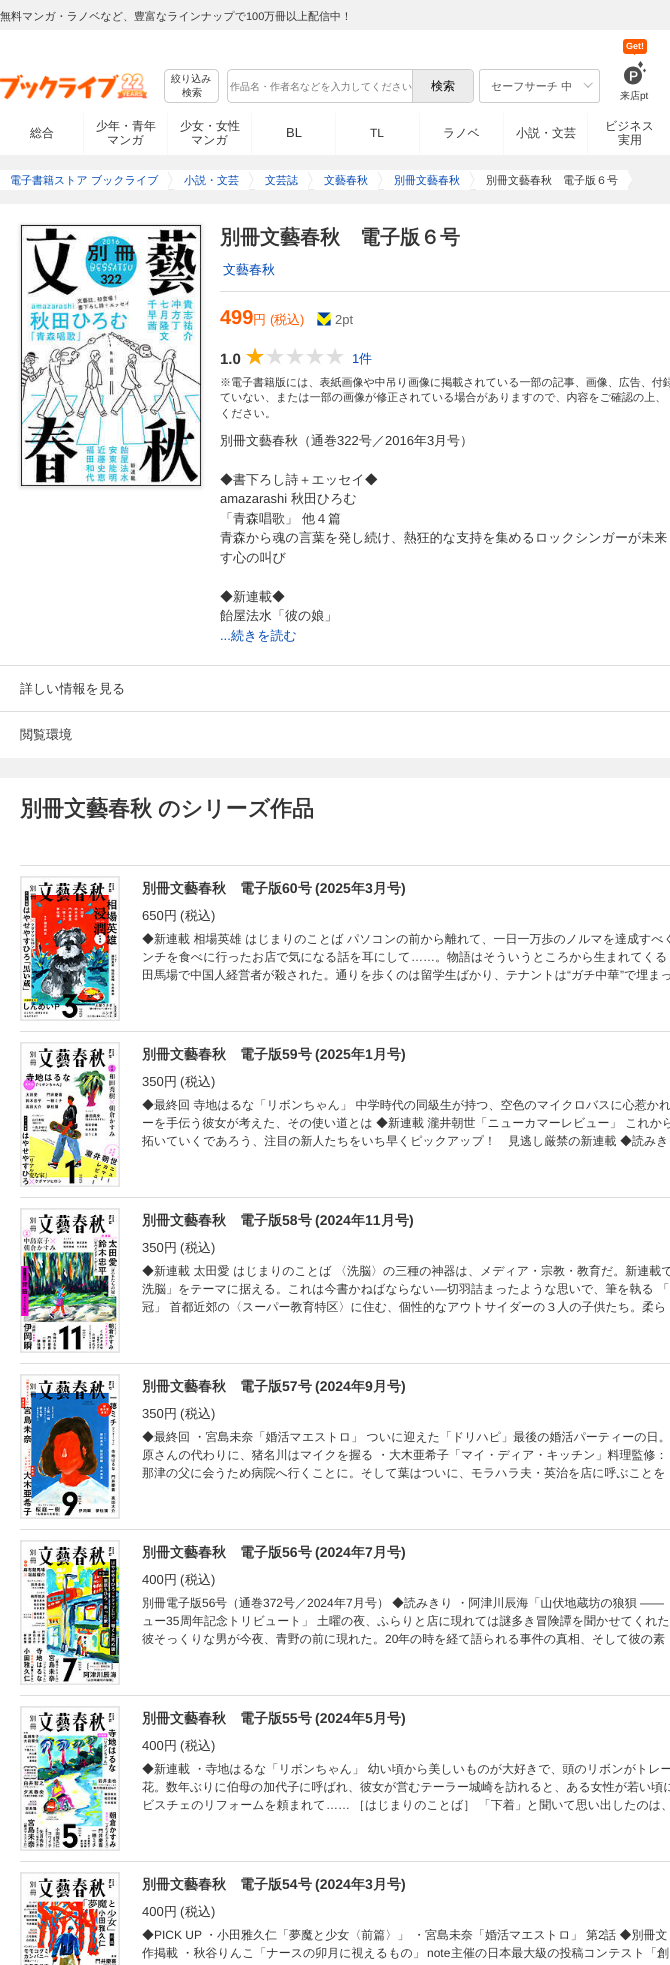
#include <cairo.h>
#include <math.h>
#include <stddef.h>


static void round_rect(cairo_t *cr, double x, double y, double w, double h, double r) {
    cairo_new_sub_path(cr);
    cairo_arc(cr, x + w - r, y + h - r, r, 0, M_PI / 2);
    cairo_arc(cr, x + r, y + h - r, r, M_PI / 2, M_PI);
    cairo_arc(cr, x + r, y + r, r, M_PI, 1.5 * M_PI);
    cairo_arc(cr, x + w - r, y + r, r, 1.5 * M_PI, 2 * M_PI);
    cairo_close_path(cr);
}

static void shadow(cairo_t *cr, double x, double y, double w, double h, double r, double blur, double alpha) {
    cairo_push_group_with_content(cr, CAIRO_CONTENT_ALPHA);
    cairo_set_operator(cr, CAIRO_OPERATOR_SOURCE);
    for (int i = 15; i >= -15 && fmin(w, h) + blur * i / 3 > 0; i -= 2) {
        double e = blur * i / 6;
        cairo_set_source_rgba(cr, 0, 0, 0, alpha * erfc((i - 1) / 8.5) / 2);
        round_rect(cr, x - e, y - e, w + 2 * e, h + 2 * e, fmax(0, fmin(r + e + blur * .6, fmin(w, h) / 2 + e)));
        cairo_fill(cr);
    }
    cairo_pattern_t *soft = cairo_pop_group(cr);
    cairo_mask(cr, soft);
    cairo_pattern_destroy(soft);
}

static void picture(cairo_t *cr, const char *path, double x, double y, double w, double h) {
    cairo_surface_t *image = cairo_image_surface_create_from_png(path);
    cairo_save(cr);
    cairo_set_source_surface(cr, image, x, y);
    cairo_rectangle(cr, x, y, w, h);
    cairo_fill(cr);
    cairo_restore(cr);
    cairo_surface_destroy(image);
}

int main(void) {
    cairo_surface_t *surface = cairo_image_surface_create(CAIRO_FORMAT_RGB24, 670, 1965);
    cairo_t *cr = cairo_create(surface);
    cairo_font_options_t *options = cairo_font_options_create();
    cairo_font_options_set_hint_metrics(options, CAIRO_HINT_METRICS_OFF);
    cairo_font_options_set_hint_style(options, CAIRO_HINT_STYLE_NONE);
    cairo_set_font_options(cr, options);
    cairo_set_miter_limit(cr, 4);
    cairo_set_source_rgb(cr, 0.945, 0.945, 0.945);
    cairo_paint(cr);
    cairo_set_source_rgb(cr, 1, 1, 1);
    cairo_rectangle(cr, 0, 30, 670, 125);
    cairo_fill(cr);
    cairo_select_font_face(cr, "WenQuanYi Zen Hei Medium", CAIRO_FONT_SLANT_NORMAL, CAIRO_FONT_WEIGHT_NORMAL);
    cairo_set_font_size(cr, 11);
    cairo_set_source_rgb(cr, 0.2, 0.2, 0.2);
    cairo_move_to(cr, 0, 20);
    cairo_show_text(cr, "無料マンガ・ラノベなど、豊富なラインナップで");
    cairo_select_font_face(cr, "Liberation Sans", CAIRO_FONT_SLANT_NORMAL, CAIRO_FONT_WEIGHT_NORMAL);
    cairo_move_to(cr, 246, 20);
    cairo_show_text(cr, "100");
    cairo_select_font_face(cr, "WenQuanYi Zen Hei Medium", CAIRO_FONT_SLANT_NORMAL, CAIRO_FONT_WEIGHT_NORMAL);
    cairo_move_to(cr, 264, 20);
    cairo_show_text(cr, "万冊以上配信中！");
    picture(cr, "img1.png", 0, 73, 148, 27);
    round_rect(cr, 164.5, 69.5, 54, 33, 4.5);
    cairo_set_source_rgb(cr, 0.8, 0.8, 0.8);
    cairo_set_line_width(cr, 1);
    cairo_stroke(cr);
    cairo_set_font_size(cr, 10);
    cairo_set_source_rgb(cr, 0.2, 0.2, 0.2);
    cairo_move_to(cr, 171, 82);
    cairo_show_text(cr, "絞り込み");
    cairo_move_to(cr, 182, 96);
    cairo_show_text(cr, "検索");
    round_rect(cr, 227.5, 69.5, 246, 33, 4.5);
    cairo_set_source_rgb(cr, 0.8, 0.8, 0.8);
    cairo_stroke(cr);
    cairo_set_source_rgb(cr, 1, 1, 1);
    cairo_new_path(cr);
    cairo_move_to(cr, 233, 70);
    cairo_line_to(cr, 412, 70);
    cairo_line_to(cr, 412, 102);
    cairo_line_to(cr, 233, 102);
    cairo_curve_to(cr, 230, 102, 228, 100, 228, 97);
    cairo_line_to(cr, 228, 75);
    cairo_curve_to(cr, 228, 72, 230, 70, 233, 70);
    cairo_close_path(cr);
    cairo_fill(cr);
    cairo_set_source_rgb(cr, 0.459, 0.459, 0.459);
    cairo_move_to(cr, 230, 90);
    cairo_show_text(cr, "作品名・作者名などを入力してください");
    cairo_set_source_rgb(cr, 0.922, 0.922, 0.922);
    cairo_new_path(cr);
    cairo_move_to(cr, 412, 70);
    cairo_line_to(cr, 468, 70);
    cairo_curve_to(cr, 471, 70, 473, 72, 473, 75);
    cairo_line_to(cr, 473, 97);
    cairo_curve_to(cr, 473, 100, 471, 102, 468, 102);
    cairo_line_to(cr, 412, 102);
    cairo_close_path(cr);
    cairo_fill(cr);
    cairo_set_source_rgb(cr, 0.8, 0.8, 0.8);
    cairo_rectangle(cr, 412, 70, 1, 32);
    cairo_fill(cr);
    cairo_set_font_size(cr, 12);
    cairo_set_source_rgb(cr, 0, 0, 0);
    cairo_move_to(cr, 431, 90);
    cairo_show_text(cr, "検索");
    round_rect(cr, 479.5, 69.5, 120, 33, 2.5);
    cairo_set_source_rgb(cr, 0.8, 0.8, 0.8);
    cairo_stroke(cr);
    cairo_set_font_size(cr, 11);
    cairo_set_source_rgb(cr, 0.302, 0.302, 0.302);
    cairo_move_to(cr, 491, 90);
    cairo_show_text(cr, "セーフサーチ 中");
    cairo_set_source_rgb(cr, 0.706, 0.706, 0.706);
    cairo_new_path(cr);
    cairo_move_to(cr, 593, 83);
    cairo_line_to(cr, 588, 88);
    cairo_line_to(cr, 587.5, 87);
    cairo_line_to(cr, 592, 82.5);
    cairo_close_path(cr);
    cairo_fill(cr);
    cairo_new_path(cr);
    cairo_move_to(cr, 589, 87);
    cairo_line_to(cr, 588, 88);
    cairo_line_to(cr, 583.5, 83);
    cairo_line_to(cr, 584, 82.5);
    cairo_close_path(cr);
    cairo_fill(cr);
    cairo_set_source_rgb(cr, 1, 0.353, 0);
    round_rect(cr, 623, 39, 24, 15, 3);
    cairo_fill(cr);
    cairo_select_font_face(cr, "Liberation Sans", CAIRO_FONT_SLANT_NORMAL, CAIRO_FONT_WEIGHT_BOLD);
    cairo_set_font_size(cr, 9);
    cairo_set_source_rgb(cr, 1, 1, 1);
    cairo_move_to(cr, 626, 49);
    cairo_show_text(cr, "Get!");
    picture(cr, "img2.png", 633, 54, 3, 1);
    picture(cr, "img3.png", 624, 61, 22, 24);
    cairo_select_font_face(cr, "WenQuanYi Zen Hei Medium", CAIRO_FONT_SLANT_NORMAL, CAIRO_FONT_WEIGHT_NORMAL);
    cairo_set_font_size(cr, 10);
    cairo_set_source_rgb(cr, 0.2, 0.2, 0.2);
    cairo_move_to(cr, 620, 99);
    cairo_show_text(cr, "来店");
    cairo_select_font_face(cr, "Liberation Sans", CAIRO_FONT_SLANT_NORMAL, CAIRO_FONT_WEIGHT_NORMAL);
    cairo_move_to(cr, 640, 99);
    cairo_show_text(cr, "pt");
    cairo_set_source_rgb(cr, 0.965, 0.965, 0.965);
    cairo_rectangle(cr, 83, 113, 1, 42);
    cairo_fill(cr);
    cairo_select_font_face(cr, "WenQuanYi Zen Hei Medium", CAIRO_FONT_SLANT_NORMAL, CAIRO_FONT_WEIGHT_NORMAL);
    cairo_set_font_size(cr, 12);
    cairo_set_source_rgb(cr, 0.2, 0.2, 0.2);
    cairo_move_to(cr, 30, 137);
    cairo_show_text(cr, "総合");
    cairo_set_source_rgb(cr, 0.965, 0.965, 0.965);
    cairo_rectangle(cr, 167, 113, 1, 42);
    cairo_fill(cr);
    cairo_set_source_rgb(cr, 0.2, 0.2, 0.2);
    cairo_move_to(cr, 96, 130);
    cairo_show_text(cr, "少年・青年");
    cairo_move_to(cr, 107, 144);
    cairo_show_text(cr, "マンガ");
    cairo_set_source_rgb(cr, 0.965, 0.965, 0.965);
    cairo_rectangle(cr, 251, 113, 1, 42);
    cairo_fill(cr);
    cairo_set_source_rgb(cr, 0.2, 0.2, 0.2);
    cairo_move_to(cr, 180, 130);
    cairo_show_text(cr, "少女・女性");
    cairo_move_to(cr, 191, 144);
    cairo_show_text(cr, "マンガ");
    cairo_set_source_rgb(cr, 0.965, 0.965, 0.965);
    cairo_rectangle(cr, 335, 113, 1, 42);
    cairo_fill(cr);
    cairo_select_font_face(cr, "Liberation Sans", CAIRO_FONT_SLANT_NORMAL, CAIRO_FONT_WEIGHT_NORMAL);
    cairo_set_font_size(cr, 13);
    cairo_set_source_rgb(cr, 0.2, 0.2, 0.2);
    cairo_move_to(cr, 286, 137);
    cairo_show_text(cr, "BL");
    cairo_set_source_rgb(cr, 0.965, 0.965, 0.965);
    cairo_rectangle(cr, 419, 113, 1, 42);
    cairo_fill(cr);
    cairo_set_font_size(cr, 12);
    cairo_set_source_rgb(cr, 0.2, 0.2, 0.2);
    cairo_move_to(cr, 370, 137);
    cairo_show_text(cr, "TL");
    cairo_set_source_rgb(cr, 0.965, 0.965, 0.965);
    cairo_rectangle(cr, 503, 113, 1, 42);
    cairo_fill(cr);
    cairo_select_font_face(cr, "WenQuanYi Zen Hei Medium", CAIRO_FONT_SLANT_NORMAL, CAIRO_FONT_WEIGHT_NORMAL);
    cairo_set_source_rgb(cr, 0.2, 0.2, 0.2);
    cairo_move_to(cr, 443, 137);
    cairo_show_text(cr, "ラノベ");
    cairo_set_source_rgb(cr, 0.965, 0.965, 0.965);
    cairo_rectangle(cr, 587, 113, 1, 42);
    cairo_fill(cr);
    cairo_set_source_rgb(cr, 0.2, 0.2, 0.2);
    cairo_move_to(cr, 516, 137);
    cairo_show_text(cr, "小説・文芸");
    cairo_move_to(cr, 605, 130);
    cairo_show_text(cr, "ビジネス");
    cairo_move_to(cr, 618, 144);
    cairo_show_text(cr, "実用");
    picture(cr, "img4.png", 168, 170, 6, 20);
    cairo_set_source_rgb(cr, 1, 1, 1);
    cairo_rectangle(cr, 0, 170, 168, 20);
    cairo_fill(cr);
    cairo_set_font_size(cr, 11);
    cairo_set_source_rgb(cr, 0, 0.282, 0.706);
    cairo_move_to(cr, 10, 184);
    cairo_show_text(cr, "電子書籍ストア ブックライブ");
    picture(cr, "img5.png", 249, 170, 6, 20);
    cairo_set_source_rgb(cr, 1, 1, 1);
    cairo_rectangle(cr, 174, 170, 75, 20);
    cairo_fill(cr);
    cairo_set_source_rgb(cr, 0, 0.282, 0.706);
    cairo_move_to(cr, 184, 184);
    cairo_show_text(cr, "小説・文芸");
    picture(cr, "img5.png", 308, 170, 6, 20);
    cairo_set_source_rgb(cr, 1, 1, 1);
    cairo_rectangle(cr, 255, 170, 53, 20);
    cairo_fill(cr);
    cairo_set_source_rgb(cr, 0, 0.282, 0.706);
    cairo_move_to(cr, 265, 184);
    cairo_show_text(cr, "文芸誌");
    picture(cr, "img5.png", 378, 170, 6, 20);
    cairo_set_source_rgb(cr, 1, 1, 1);
    cairo_rectangle(cr, 314, 170, 64, 20);
    cairo_fill(cr);
    cairo_set_source_rgb(cr, 0, 0.282, 0.706);
    cairo_move_to(cr, 324, 184);
    cairo_show_text(cr, "文藝春秋");
    picture(cr, "img5.png", 470, 170, 6, 20);
    cairo_set_source_rgb(cr, 1, 1, 1);
    cairo_rectangle(cr, 384, 170, 86, 20);
    cairo_fill(cr);
    cairo_set_source_rgb(cr, 0, 0.282, 0.706);
    cairo_move_to(cr, 394, 184);
    cairo_show_text(cr, "別冊文藝春秋");
    picture(cr, "img6.png", 628, 172, 4, 17);
    cairo_set_source_rgb(cr, 1, 1, 1);
    cairo_rectangle(cr, 476, 170, 152, 20);
    cairo_fill(cr);
    cairo_set_source_rgb(cr, 0.2, 0.2, 0.2);
    cairo_move_to(cr, 486, 184);
    cairo_show_text(cr, "別冊文藝春秋　電子版６号");
    cairo_set_source_rgb(cr, 1, 1, 1);
    cairo_rectangle(cr, 0, 204, 670, 461);
    cairo_fill(cr);
    cairo_set_source_rgb(cr, 0, 0, 0);
    shadow(cr, 20, 225, 182, 263, 0, 2, 0.14);
    cairo_rectangle(cr, 20.5, 224.5, 181, 262);
    cairo_set_source_rgb(cr, 0.898, 0.898, 0.898);
    cairo_stroke(cr);
    picture(cr, "img7.png", 21, 225, 180, 261);
    cairo_select_font_face(cr, "WenQuanYi Zen Hei", CAIRO_FONT_SLANT_NORMAL, CAIRO_FONT_WEIGHT_BOLD);
    cairo_set_font_size(cr, 20);
    cairo_set_source_rgb(cr, 0.2, 0.2, 0.2);
    cairo_move_to(cr, 220, 244);
    cairo_show_text(cr, "別冊文藝春秋　電子版６号");
    cairo_set_source_rgb(cr, 0.867, 0.867, 0.867);
    cairo_rectangle(cr, 220, 291, 450, 1);
    cairo_fill(cr);
    cairo_select_font_face(cr, "WenQuanYi Zen Hei Medium", CAIRO_FONT_SLANT_NORMAL, CAIRO_FONT_WEIGHT_NORMAL);
    cairo_set_font_size(cr, 13);
    cairo_set_source_rgb(cr, 0, 0.282, 0.706);
    cairo_move_to(cr, 223, 274);
    cairo_show_text(cr, "文藝春秋");
    cairo_select_font_face(cr, "Liberation Sans", CAIRO_FONT_SLANT_NORMAL, CAIRO_FONT_WEIGHT_BOLD);
    cairo_set_font_size(cr, 20);
    cairo_set_source_rgb(cr, 1, 0.353, 0);
    cairo_move_to(cr, 220, 324);
    cairo_show_text(cr, "499");
    cairo_select_font_face(cr, "WenQuanYi Zen Hei Medium", CAIRO_FONT_SLANT_NORMAL, CAIRO_FONT_WEIGHT_NORMAL);
    cairo_set_font_size(cr, 13);
    cairo_move_to(cr, 253, 324);
    cairo_show_text(cr, "円");
    cairo_select_font_face(cr, "Liberation Sans", CAIRO_FONT_SLANT_NORMAL, CAIRO_FONT_WEIGHT_NORMAL);
    cairo_move_to(cr, 270, 324);
    cairo_show_text(cr, "(");
    cairo_select_font_face(cr, "WenQuanYi Zen Hei Medium", CAIRO_FONT_SLANT_NORMAL, CAIRO_FONT_WEIGHT_NORMAL);
    cairo_move_to(cr, 274, 324);
    cairo_show_text(cr, "税込");
    cairo_select_font_face(cr, "Liberation Sans", CAIRO_FONT_SLANT_NORMAL, CAIRO_FONT_WEIGHT_NORMAL);
    cairo_move_to(cr, 300, 324);
    cairo_show_text(cr, ")");
    picture(cr, "img8.png", 317, 312, 14, 14);
    cairo_set_source_rgb(cr, 0.4, 0.4, 0.4);
    cairo_move_to(cr, 335, 324);
    cairo_show_text(cr, "2pt");
    cairo_select_font_face(cr, "Liberation Sans", CAIRO_FONT_SLANT_NORMAL, CAIRO_FONT_WEIGHT_BOLD);
    cairo_set_font_size(cr, 15);
    cairo_set_source_rgb(cr, 0.2, 0.2, 0.2);
    cairo_move_to(cr, 220, 364);
    cairo_show_text(cr, "1.0");
    picture(cr, "img10.png", 246, 348, 18, 17);
    picture(cr, "img9.png", 246, 347, 18, 18);
    picture(cr, "img10.png", 266, 348, 18, 17);
    picture(cr, "img10.png", 286, 348, 18, 17);
    picture(cr, "img10.png", 306, 348, 18, 17);
    picture(cr, "img10.png", 326, 348, 18, 17);
    cairo_select_font_face(cr, "Liberation Sans", CAIRO_FONT_SLANT_NORMAL, CAIRO_FONT_WEIGHT_NORMAL);
    cairo_set_font_size(cr, 13);
    cairo_set_source_rgb(cr, 0, 0.282, 0.706);
    cairo_move_to(cr, 352, 363);
    cairo_show_text(cr, "1");
    cairo_select_font_face(cr, "WenQuanYi Zen Hei Medium", CAIRO_FONT_SLANT_NORMAL, CAIRO_FONT_WEIGHT_NORMAL);
    cairo_move_to(cr, 359, 363);
    cairo_show_text(cr, "件");
    cairo_set_font_size(cr, 11);
    cairo_set_source_rgb(cr, 0.2, 0.2, 0.2);
    cairo_move_to(cr, 220, 386);
    cairo_show_text(cr, "※電子書籍版には、表紙画像や中吊り画像に掲載されている一部の記事、画像、広告、付録");
    cairo_move_to(cr, 220, 401);
    cairo_show_text(cr, "ていない、または一部の画像が修正されている場合がありますので、内容をご確認の上、");
    cairo_move_to(cr, 220, 417);
    cairo_show_text(cr, "ください。");
    cairo_set_font_size(cr, 13);
    cairo_move_to(cr, 220, 445);
    cairo_show_text(cr, "別冊文藝春秋（通巻");
    cairo_select_font_face(cr, "Liberation Sans", CAIRO_FONT_SLANT_NORMAL, CAIRO_FONT_WEIGHT_NORMAL);
    cairo_move_to(cr, 337, 445);
    cairo_show_text(cr, "322");
    cairo_select_font_face(cr, "WenQuanYi Zen Hei Medium", CAIRO_FONT_SLANT_NORMAL, CAIRO_FONT_WEIGHT_NORMAL);
    cairo_move_to(cr, 359, 445);
    cairo_show_text(cr, "号／");
    cairo_select_font_face(cr, "Liberation Sans", CAIRO_FONT_SLANT_NORMAL, CAIRO_FONT_WEIGHT_NORMAL);
    cairo_move_to(cr, 385, 445);
    cairo_show_text(cr, "2016");
    cairo_select_font_face(cr, "WenQuanYi Zen Hei Medium", CAIRO_FONT_SLANT_NORMAL, CAIRO_FONT_WEIGHT_NORMAL);
    cairo_move_to(cr, 414, 445);
    cairo_show_text(cr, "年");
    cairo_select_font_face(cr, "Liberation Sans", CAIRO_FONT_SLANT_NORMAL, CAIRO_FONT_WEIGHT_NORMAL);
    cairo_move_to(cr, 427, 445);
    cairo_show_text(cr, "3");
    cairo_select_font_face(cr, "WenQuanYi Zen Hei Medium", CAIRO_FONT_SLANT_NORMAL, CAIRO_FONT_WEIGHT_NORMAL);
    cairo_move_to(cr, 434, 445);
    cairo_show_text(cr, "月号）");
    cairo_move_to(cr, 220, 484);
    cairo_show_text(cr, "◆書下ろし詩＋エッセイ◆");
    cairo_select_font_face(cr, "Liberation Sans", CAIRO_FONT_SLANT_NORMAL, CAIRO_FONT_WEIGHT_NORMAL);
    cairo_move_to(cr, 220, 503);
    cairo_show_text(cr, "amazarashi");
    cairo_select_font_face(cr, "WenQuanYi Zen Hei Medium", CAIRO_FONT_SLANT_NORMAL, CAIRO_FONT_WEIGHT_NORMAL);
    cairo_move_to(cr, 291, 503);
    cairo_show_text(cr, "秋田ひろむ");
    cairo_move_to(cr, 220, 523);
    cairo_show_text(cr, "「青森唱歌」 他４篇");
    cairo_move_to(cr, 220, 542);
    cairo_show_text(cr, "青森から魂の言葉を発し続け、熱狂的な支持を集めるロックシンガーが未来");
    cairo_move_to(cr, 220, 562);
    cairo_show_text(cr, "す心の叫び");
    cairo_move_to(cr, 220, 601);
    cairo_show_text(cr, "◆新連載◆");
    cairo_move_to(cr, 220, 620);
    cairo_show_text(cr, "飴屋法水「彼の娘」");
    cairo_select_font_face(cr, "Liberation Sans", CAIRO_FONT_SLANT_NORMAL, CAIRO_FONT_WEIGHT_NORMAL);
    cairo_set_source_rgb(cr, 0, 0.282, 0.706);
    cairo_move_to(cr, 220, 640);
    cairo_show_text(cr, "...");
    cairo_select_font_face(cr, "WenQuanYi Zen Hei Medium", CAIRO_FONT_SLANT_NORMAL, CAIRO_FONT_WEIGHT_NORMAL);
    cairo_move_to(cr, 231, 640);
    cairo_show_text(cr, "続きを読む");
    cairo_set_source_rgb(cr, 1, 1, 1);
    cairo_rectangle(cr, 0, 666, 670, 45);
    cairo_fill(cr);
    cairo_set_source_rgb(cr, 0.867, 0.867, 0.867);
    cairo_rectangle(cr, 0, 665, 670, 1);
    cairo_fill(cr);
    cairo_set_source_rgb(cr, 0.2, 0.2, 0.2);
    cairo_move_to(cr, 20, 693);
    cairo_show_text(cr, "詳しい情報を見る");
    cairo_set_source_rgb(cr, 0.867, 0.867, 0.867);
    cairo_rectangle(cr, 0, 711, 670, 1);
    cairo_fill(cr);
    cairo_set_source_rgb(cr, 1, 1, 1);
    cairo_rectangle(cr, 0, 712, 670, 46);
    cairo_fill(cr);
    cairo_set_source_rgb(cr, 0.2, 0.2, 0.2);
    cairo_move_to(cr, 20, 739);
    cairo_show_text(cr, "閲覧環境");
    cairo_set_source_rgb(cr, 1, 1, 1);
    cairo_rectangle(cr, 0, 778, 670, 1187);
    cairo_fill(cr);
    cairo_select_font_face(cr, "WenQuanYi Zen Hei", CAIRO_FONT_SLANT_NORMAL, CAIRO_FONT_WEIGHT_BOLD);
    cairo_set_font_size(cr, 22);
    cairo_set_source_rgb(cr, 0.2, 0.2, 0.2);
    cairo_move_to(cr, 20, 816);
    cairo_show_text(cr, "別冊文藝春秋");
    cairo_move_to(cr, 158, 816);
    cairo_show_text(cr, "のシリーズ作品");
    cairo_set_source_rgb(cr, 0.867, 0.867, 0.867);
    cairo_rectangle(cr, 20, 865, 650, 1);
    cairo_fill(cr);
    cairo_rectangle(cr, 20, 1031, 650, 1);
    cairo_fill(cr);
    cairo_rectangle(cr, 20.5, 876.5, 99, 144);
    cairo_set_source_rgb(cr, 0.898, 0.898, 0.898);
    cairo_stroke(cr);
    picture(cr, "img11.png", 21, 877, 98, 143);
    cairo_set_font_size(cr, 14);
    cairo_set_source_rgb(cr, 0.2, 0.2, 0.2);
    cairo_move_to(cr, 142, 893);
    cairo_show_text(cr, "別冊文藝春秋　電子版");
    cairo_select_font_face(cr, "Liberation Sans", CAIRO_FONT_SLANT_NORMAL, CAIRO_FONT_WEIGHT_BOLD);
    cairo_move_to(cr, 282, 893);
    cairo_show_text(cr, "60");
    cairo_select_font_face(cr, "WenQuanYi Zen Hei", CAIRO_FONT_SLANT_NORMAL, CAIRO_FONT_WEIGHT_BOLD);
    cairo_move_to(cr, 298, 893);
    cairo_show_text(cr, "号");
    cairo_select_font_face(cr, "Liberation Sans", CAIRO_FONT_SLANT_NORMAL, CAIRO_FONT_WEIGHT_BOLD);
    cairo_move_to(cr, 315, 893);
    cairo_show_text(cr, "(2025");
    cairo_select_font_face(cr, "WenQuanYi Zen Hei", CAIRO_FONT_SLANT_NORMAL, CAIRO_FONT_WEIGHT_BOLD);
    cairo_move_to(cr, 351, 893);
    cairo_show_text(cr, "年");
    cairo_select_font_face(cr, "Liberation Sans", CAIRO_FONT_SLANT_NORMAL, CAIRO_FONT_WEIGHT_BOLD);
    cairo_move_to(cr, 365, 893);
    cairo_show_text(cr, "3");
    cairo_select_font_face(cr, "WenQuanYi Zen Hei", CAIRO_FONT_SLANT_NORMAL, CAIRO_FONT_WEIGHT_BOLD);
    cairo_move_to(cr, 373, 893);
    cairo_show_text(cr, "月号");
    cairo_select_font_face(cr, "Liberation Sans", CAIRO_FONT_SLANT_NORMAL, CAIRO_FONT_WEIGHT_BOLD);
    cairo_move_to(cr, 401, 893);
    cairo_show_text(cr, ")");
    cairo_select_font_face(cr, "Liberation Sans", CAIRO_FONT_SLANT_NORMAL, CAIRO_FONT_WEIGHT_NORMAL);
    cairo_set_font_size(cr, 13);
    cairo_move_to(cr, 142, 920);
    cairo_show_text(cr, "650");
    cairo_select_font_face(cr, "WenQuanYi Zen Hei Medium", CAIRO_FONT_SLANT_NORMAL, CAIRO_FONT_WEIGHT_NORMAL);
    cairo_move_to(cr, 164, 920);
    cairo_show_text(cr, "円");
    cairo_select_font_face(cr, "Liberation Sans", CAIRO_FONT_SLANT_NORMAL, CAIRO_FONT_WEIGHT_NORMAL);
    cairo_move_to(cr, 180, 920);
    cairo_show_text(cr, "(");
    cairo_select_font_face(cr, "WenQuanYi Zen Hei Medium", CAIRO_FONT_SLANT_NORMAL, CAIRO_FONT_WEIGHT_NORMAL);
    cairo_move_to(cr, 185, 920);
    cairo_show_text(cr, "税込");
    cairo_select_font_face(cr, "Liberation Sans", CAIRO_FONT_SLANT_NORMAL, CAIRO_FONT_WEIGHT_NORMAL);
    cairo_move_to(cr, 211, 920);
    cairo_show_text(cr, ")");
    cairo_select_font_face(cr, "WenQuanYi Zen Hei Medium", CAIRO_FONT_SLANT_NORMAL, CAIRO_FONT_WEIGHT_NORMAL);
    cairo_set_font_size(cr, 12);
    cairo_move_to(cr, 142, 943);
    cairo_show_text(cr, "◆新連載 相場英雄 はじまりのことば パソコンの前から離れて、一日一万歩のノルマを達成すべく");
    cairo_move_to(cr, 142, 961);
    cairo_show_text(cr, "ンチを食べに行ったお店で気になる話を耳にして");
    cairo_select_font_face(cr, "Liberation Sans", CAIRO_FONT_SLANT_NORMAL, CAIRO_FONT_WEIGHT_NORMAL);
    cairo_move_to(cr, 411, 961);
    cairo_show_text(cr, "……");
    cairo_select_font_face(cr, "WenQuanYi Zen Hei Medium", CAIRO_FONT_SLANT_NORMAL, CAIRO_FONT_WEIGHT_NORMAL);
    cairo_move_to(cr, 435, 961);
    cairo_show_text(cr, "。物語はそういうところから生まれてくる");
    cairo_move_to(cr, 142, 979);
    cairo_show_text(cr, "田馬場で中国人経営者が殺された。通りを歩くのは留学生ばかり、テナントは");
    cairo_select_font_face(cr, "Liberation Sans", CAIRO_FONT_SLANT_NORMAL, CAIRO_FONT_WEIGHT_NORMAL);
    cairo_move_to(cr, 567, 979);
    cairo_show_text(cr, "“");
    cairo_select_font_face(cr, "WenQuanYi Zen Hei Medium", CAIRO_FONT_SLANT_NORMAL, CAIRO_FONT_WEIGHT_NORMAL);
    cairo_move_to(cr, 571, 979);
    cairo_show_text(cr, "ガチ中華");
    cairo_select_font_face(cr, "Liberation Sans", CAIRO_FONT_SLANT_NORMAL, CAIRO_FONT_WEIGHT_NORMAL);
    cairo_move_to(cr, 620, 979);
    cairo_show_text(cr, "”");
    cairo_select_font_face(cr, "WenQuanYi Zen Hei Medium", CAIRO_FONT_SLANT_NORMAL, CAIRO_FONT_WEIGHT_NORMAL);
    cairo_move_to(cr, 624, 979);
    cairo_show_text(cr, "で埋まっ");
    cairo_set_source_rgb(cr, 0.867, 0.867, 0.867);
    cairo_rectangle(cr, 20, 1197, 650, 1);
    cairo_fill(cr);
    cairo_rectangle(cr, 20.5, 1042.5, 99, 144);
    cairo_set_source_rgb(cr, 0.898, 0.898, 0.898);
    cairo_stroke(cr);
    picture(cr, "img12.png", 21, 1043, 98, 143);
    cairo_select_font_face(cr, "WenQuanYi Zen Hei", CAIRO_FONT_SLANT_NORMAL, CAIRO_FONT_WEIGHT_BOLD);
    cairo_set_font_size(cr, 14);
    cairo_set_source_rgb(cr, 0.2, 0.2, 0.2);
    cairo_move_to(cr, 142, 1059);
    cairo_show_text(cr, "別冊文藝春秋　電子版");
    cairo_select_font_face(cr, "Liberation Sans", CAIRO_FONT_SLANT_NORMAL, CAIRO_FONT_WEIGHT_BOLD);
    cairo_move_to(cr, 282, 1059);
    cairo_show_text(cr, "59");
    cairo_select_font_face(cr, "WenQuanYi Zen Hei", CAIRO_FONT_SLANT_NORMAL, CAIRO_FONT_WEIGHT_BOLD);
    cairo_move_to(cr, 298, 1059);
    cairo_show_text(cr, "号");
    cairo_select_font_face(cr, "Liberation Sans", CAIRO_FONT_SLANT_NORMAL, CAIRO_FONT_WEIGHT_BOLD);
    cairo_move_to(cr, 315, 1059);
    cairo_show_text(cr, "(2025");
    cairo_select_font_face(cr, "WenQuanYi Zen Hei", CAIRO_FONT_SLANT_NORMAL, CAIRO_FONT_WEIGHT_BOLD);
    cairo_move_to(cr, 351, 1059);
    cairo_show_text(cr, "年");
    cairo_select_font_face(cr, "Liberation Sans", CAIRO_FONT_SLANT_NORMAL, CAIRO_FONT_WEIGHT_BOLD);
    cairo_move_to(cr, 365, 1059);
    cairo_show_text(cr, "1");
    cairo_select_font_face(cr, "WenQuanYi Zen Hei", CAIRO_FONT_SLANT_NORMAL, CAIRO_FONT_WEIGHT_BOLD);
    cairo_move_to(cr, 373, 1059);
    cairo_show_text(cr, "月号");
    cairo_select_font_face(cr, "Liberation Sans", CAIRO_FONT_SLANT_NORMAL, CAIRO_FONT_WEIGHT_BOLD);
    cairo_move_to(cr, 401, 1059);
    cairo_show_text(cr, ")");
    cairo_select_font_face(cr, "Liberation Sans", CAIRO_FONT_SLANT_NORMAL, CAIRO_FONT_WEIGHT_NORMAL);
    cairo_set_font_size(cr, 13);
    cairo_move_to(cr, 142, 1086);
    cairo_show_text(cr, "350");
    cairo_select_font_face(cr, "WenQuanYi Zen Hei Medium", CAIRO_FONT_SLANT_NORMAL, CAIRO_FONT_WEIGHT_NORMAL);
    cairo_move_to(cr, 164, 1086);
    cairo_show_text(cr, "円");
    cairo_select_font_face(cr, "Liberation Sans", CAIRO_FONT_SLANT_NORMAL, CAIRO_FONT_WEIGHT_NORMAL);
    cairo_move_to(cr, 180, 1086);
    cairo_show_text(cr, "(");
    cairo_select_font_face(cr, "WenQuanYi Zen Hei Medium", CAIRO_FONT_SLANT_NORMAL, CAIRO_FONT_WEIGHT_NORMAL);
    cairo_move_to(cr, 185, 1086);
    cairo_show_text(cr, "税込");
    cairo_select_font_face(cr, "Liberation Sans", CAIRO_FONT_SLANT_NORMAL, CAIRO_FONT_WEIGHT_NORMAL);
    cairo_move_to(cr, 211, 1086);
    cairo_show_text(cr, ")");
    cairo_select_font_face(cr, "WenQuanYi Zen Hei Medium", CAIRO_FONT_SLANT_NORMAL, CAIRO_FONT_WEIGHT_NORMAL);
    cairo_set_font_size(cr, 12);
    cairo_move_to(cr, 142, 1109);
    cairo_show_text(cr, "◆最終回 寺地はるな「リボンちゃん」 中学時代の同級生が持つ、空色のマイクロバスに心惹かれ");
    cairo_move_to(cr, 142, 1127);
    cairo_show_text(cr, "ーを手伝う彼女が考えた、その使い道とは");
    cairo_move_to(cr, 376, 1127);
    cairo_show_text(cr, "◆新連載 瀧井朝世「ニューカマーレビュー」 これから");
    cairo_move_to(cr, 142, 1145);
    cairo_show_text(cr, "拓いていくであろう、注目の新人たちをいち早くピックアップ！　見逃し厳禁の新連載");
    cairo_move_to(cr, 620, 1145);
    cairo_show_text(cr, "◆読みき");
    cairo_set_source_rgb(cr, 0.867, 0.867, 0.867);
    cairo_rectangle(cr, 20, 1363, 650, 1);
    cairo_fill(cr);
    cairo_rectangle(cr, 20.5, 1208.5, 99, 144);
    cairo_set_source_rgb(cr, 0.898, 0.898, 0.898);
    cairo_stroke(cr);
    picture(cr, "img13.png", 21, 1209, 98, 143);
    cairo_select_font_face(cr, "WenQuanYi Zen Hei", CAIRO_FONT_SLANT_NORMAL, CAIRO_FONT_WEIGHT_BOLD);
    cairo_set_font_size(cr, 14);
    cairo_set_source_rgb(cr, 0.2, 0.2, 0.2);
    cairo_move_to(cr, 142, 1225);
    cairo_show_text(cr, "別冊文藝春秋　電子版");
    cairo_select_font_face(cr, "Liberation Sans", CAIRO_FONT_SLANT_NORMAL, CAIRO_FONT_WEIGHT_BOLD);
    cairo_move_to(cr, 282, 1225);
    cairo_show_text(cr, "58");
    cairo_select_font_face(cr, "WenQuanYi Zen Hei", CAIRO_FONT_SLANT_NORMAL, CAIRO_FONT_WEIGHT_BOLD);
    cairo_move_to(cr, 298, 1225);
    cairo_show_text(cr, "号");
    cairo_select_font_face(cr, "Liberation Sans", CAIRO_FONT_SLANT_NORMAL, CAIRO_FONT_WEIGHT_BOLD);
    cairo_move_to(cr, 315, 1225);
    cairo_show_text(cr, "(2024");
    cairo_select_font_face(cr, "WenQuanYi Zen Hei", CAIRO_FONT_SLANT_NORMAL, CAIRO_FONT_WEIGHT_BOLD);
    cairo_move_to(cr, 351, 1225);
    cairo_show_text(cr, "年");
    cairo_select_font_face(cr, "Liberation Sans", CAIRO_FONT_SLANT_NORMAL, CAIRO_FONT_WEIGHT_BOLD);
    cairo_move_to(cr, 365, 1225);
    cairo_show_text(cr, "11");
    cairo_select_font_face(cr, "WenQuanYi Zen Hei", CAIRO_FONT_SLANT_NORMAL, CAIRO_FONT_WEIGHT_BOLD);
    cairo_move_to(cr, 381, 1225);
    cairo_show_text(cr, "月号");
    cairo_select_font_face(cr, "Liberation Sans", CAIRO_FONT_SLANT_NORMAL, CAIRO_FONT_WEIGHT_BOLD);
    cairo_move_to(cr, 409, 1225);
    cairo_show_text(cr, ")");
    cairo_select_font_face(cr, "Liberation Sans", CAIRO_FONT_SLANT_NORMAL, CAIRO_FONT_WEIGHT_NORMAL);
    cairo_set_font_size(cr, 13);
    cairo_move_to(cr, 142, 1252);
    cairo_show_text(cr, "350");
    cairo_select_font_face(cr, "WenQuanYi Zen Hei Medium", CAIRO_FONT_SLANT_NORMAL, CAIRO_FONT_WEIGHT_NORMAL);
    cairo_move_to(cr, 164, 1252);
    cairo_show_text(cr, "円");
    cairo_select_font_face(cr, "Liberation Sans", CAIRO_FONT_SLANT_NORMAL, CAIRO_FONT_WEIGHT_NORMAL);
    cairo_move_to(cr, 180, 1252);
    cairo_show_text(cr, "(");
    cairo_select_font_face(cr, "WenQuanYi Zen Hei Medium", CAIRO_FONT_SLANT_NORMAL, CAIRO_FONT_WEIGHT_NORMAL);
    cairo_move_to(cr, 185, 1252);
    cairo_show_text(cr, "税込");
    cairo_select_font_face(cr, "Liberation Sans", CAIRO_FONT_SLANT_NORMAL, CAIRO_FONT_WEIGHT_NORMAL);
    cairo_move_to(cr, 211, 1252);
    cairo_show_text(cr, ")");
    cairo_select_font_face(cr, "WenQuanYi Zen Hei Medium", CAIRO_FONT_SLANT_NORMAL, CAIRO_FONT_WEIGHT_NORMAL);
    cairo_set_font_size(cr, 12);
    cairo_move_to(cr, 142, 1275);
    cairo_show_text(cr, "◆新連載 太田愛 はじまりのことば 〈洗脳〉の三種の神器は、メディア・宗教・教育だ。新連載で");
    cairo_move_to(cr, 142, 1293);
    cairo_show_text(cr, "洗脳」をテーマに据える。これは今書かねばならない");
    cairo_select_font_face(cr, "Liberation Sans", CAIRO_FONT_SLANT_NORMAL, CAIRO_FONT_WEIGHT_NORMAL);
    cairo_move_to(cr, 435, 1293);
    cairo_show_text(cr, "―");
    cairo_select_font_face(cr, "WenQuanYi Zen Hei Medium", CAIRO_FONT_SLANT_NORMAL, CAIRO_FONT_WEIGHT_NORMAL);
    cairo_move_to(cr, 447, 1293);
    cairo_show_text(cr, "切羽詰まったような思いで、筆を執る 「");
    cairo_move_to(cr, 142, 1311);
    cairo_show_text(cr, "冠」 首都近郊の〈スーパー教育特区〉に住む、個性的なアウトサイダーの３人の子供たち。柔ら");
    cairo_set_source_rgb(cr, 0.867, 0.867, 0.867);
    cairo_rectangle(cr, 20, 1529, 650, 1);
    cairo_fill(cr);
    cairo_rectangle(cr, 20.5, 1374.5, 99, 144);
    cairo_set_source_rgb(cr, 0.898, 0.898, 0.898);
    cairo_stroke(cr);
    picture(cr, "img14.png", 21, 1375, 98, 143);
    cairo_select_font_face(cr, "WenQuanYi Zen Hei", CAIRO_FONT_SLANT_NORMAL, CAIRO_FONT_WEIGHT_BOLD);
    cairo_set_font_size(cr, 14);
    cairo_set_source_rgb(cr, 0.2, 0.2, 0.2);
    cairo_move_to(cr, 142, 1391);
    cairo_show_text(cr, "別冊文藝春秋　電子版");
    cairo_select_font_face(cr, "Liberation Sans", CAIRO_FONT_SLANT_NORMAL, CAIRO_FONT_WEIGHT_BOLD);
    cairo_move_to(cr, 282, 1391);
    cairo_show_text(cr, "57");
    cairo_select_font_face(cr, "WenQuanYi Zen Hei", CAIRO_FONT_SLANT_NORMAL, CAIRO_FONT_WEIGHT_BOLD);
    cairo_move_to(cr, 298, 1391);
    cairo_show_text(cr, "号");
    cairo_select_font_face(cr, "Liberation Sans", CAIRO_FONT_SLANT_NORMAL, CAIRO_FONT_WEIGHT_BOLD);
    cairo_move_to(cr, 315, 1391);
    cairo_show_text(cr, "(2024");
    cairo_select_font_face(cr, "WenQuanYi Zen Hei", CAIRO_FONT_SLANT_NORMAL, CAIRO_FONT_WEIGHT_BOLD);
    cairo_move_to(cr, 351, 1391);
    cairo_show_text(cr, "年");
    cairo_select_font_face(cr, "Liberation Sans", CAIRO_FONT_SLANT_NORMAL, CAIRO_FONT_WEIGHT_BOLD);
    cairo_move_to(cr, 365, 1391);
    cairo_show_text(cr, "9");
    cairo_select_font_face(cr, "WenQuanYi Zen Hei", CAIRO_FONT_SLANT_NORMAL, CAIRO_FONT_WEIGHT_BOLD);
    cairo_move_to(cr, 373, 1391);
    cairo_show_text(cr, "月号");
    cairo_select_font_face(cr, "Liberation Sans", CAIRO_FONT_SLANT_NORMAL, CAIRO_FONT_WEIGHT_BOLD);
    cairo_move_to(cr, 401, 1391);
    cairo_show_text(cr, ")");
    cairo_select_font_face(cr, "Liberation Sans", CAIRO_FONT_SLANT_NORMAL, CAIRO_FONT_WEIGHT_NORMAL);
    cairo_set_font_size(cr, 13);
    cairo_move_to(cr, 142, 1418);
    cairo_show_text(cr, "350");
    cairo_select_font_face(cr, "WenQuanYi Zen Hei Medium", CAIRO_FONT_SLANT_NORMAL, CAIRO_FONT_WEIGHT_NORMAL);
    cairo_move_to(cr, 164, 1418);
    cairo_show_text(cr, "円");
    cairo_select_font_face(cr, "Liberation Sans", CAIRO_FONT_SLANT_NORMAL, CAIRO_FONT_WEIGHT_NORMAL);
    cairo_move_to(cr, 180, 1418);
    cairo_show_text(cr, "(");
    cairo_select_font_face(cr, "WenQuanYi Zen Hei Medium", CAIRO_FONT_SLANT_NORMAL, CAIRO_FONT_WEIGHT_NORMAL);
    cairo_move_to(cr, 185, 1418);
    cairo_show_text(cr, "税込");
    cairo_select_font_face(cr, "Liberation Sans", CAIRO_FONT_SLANT_NORMAL, CAIRO_FONT_WEIGHT_NORMAL);
    cairo_move_to(cr, 211, 1418);
    cairo_show_text(cr, ")");
    cairo_select_font_face(cr, "WenQuanYi Zen Hei Medium", CAIRO_FONT_SLANT_NORMAL, CAIRO_FONT_WEIGHT_NORMAL);
    cairo_set_font_size(cr, 12);
    cairo_move_to(cr, 142, 1441);
    cairo_show_text(cr, "◆最終回 ・宮島未奈「婚活マエストロ」 ついに迎えた「ドリハピ」最後の婚活パーティーの日。");
    cairo_move_to(cr, 142, 1459);
    cairo_show_text(cr, "原さんの代わりに、猪名川はマイクを握る");
    cairo_move_to(cr, 377, 1459);
    cairo_show_text(cr, "・大木亜希子「マイ・ディア・キッチン」料理監修：");
    cairo_move_to(cr, 142, 1477);
    cairo_show_text(cr, "那津の父に会うため病院へ行くことに。そして葉はついに、モラハラ夫・英治を店に呼ぶことを");
    cairo_set_source_rgb(cr, 0.867, 0.867, 0.867);
    cairo_rectangle(cr, 20, 1695, 650, 1);
    cairo_fill(cr);
    cairo_rectangle(cr, 20.5, 1540.5, 99, 144);
    cairo_set_source_rgb(cr, 0.898, 0.898, 0.898);
    cairo_stroke(cr);
    picture(cr, "img15.png", 21, 1541, 98, 143);
    cairo_select_font_face(cr, "WenQuanYi Zen Hei", CAIRO_FONT_SLANT_NORMAL, CAIRO_FONT_WEIGHT_BOLD);
    cairo_set_font_size(cr, 14);
    cairo_set_source_rgb(cr, 0.2, 0.2, 0.2);
    cairo_move_to(cr, 142, 1557);
    cairo_show_text(cr, "別冊文藝春秋　電子版");
    cairo_select_font_face(cr, "Liberation Sans", CAIRO_FONT_SLANT_NORMAL, CAIRO_FONT_WEIGHT_BOLD);
    cairo_move_to(cr, 282, 1557);
    cairo_show_text(cr, "56");
    cairo_select_font_face(cr, "WenQuanYi Zen Hei", CAIRO_FONT_SLANT_NORMAL, CAIRO_FONT_WEIGHT_BOLD);
    cairo_move_to(cr, 298, 1557);
    cairo_show_text(cr, "号");
    cairo_select_font_face(cr, "Liberation Sans", CAIRO_FONT_SLANT_NORMAL, CAIRO_FONT_WEIGHT_BOLD);
    cairo_move_to(cr, 315, 1557);
    cairo_show_text(cr, "(2024");
    cairo_select_font_face(cr, "WenQuanYi Zen Hei", CAIRO_FONT_SLANT_NORMAL, CAIRO_FONT_WEIGHT_BOLD);
    cairo_move_to(cr, 351, 1557);
    cairo_show_text(cr, "年");
    cairo_select_font_face(cr, "Liberation Sans", CAIRO_FONT_SLANT_NORMAL, CAIRO_FONT_WEIGHT_BOLD);
    cairo_move_to(cr, 365, 1557);
    cairo_show_text(cr, "7");
    cairo_select_font_face(cr, "WenQuanYi Zen Hei", CAIRO_FONT_SLANT_NORMAL, CAIRO_FONT_WEIGHT_BOLD);
    cairo_move_to(cr, 373, 1557);
    cairo_show_text(cr, "月号");
    cairo_select_font_face(cr, "Liberation Sans", CAIRO_FONT_SLANT_NORMAL, CAIRO_FONT_WEIGHT_BOLD);
    cairo_move_to(cr, 401, 1557);
    cairo_show_text(cr, ")");
    cairo_select_font_face(cr, "Liberation Sans", CAIRO_FONT_SLANT_NORMAL, CAIRO_FONT_WEIGHT_NORMAL);
    cairo_set_font_size(cr, 13);
    cairo_move_to(cr, 142, 1584);
    cairo_show_text(cr, "400");
    cairo_select_font_face(cr, "WenQuanYi Zen Hei Medium", CAIRO_FONT_SLANT_NORMAL, CAIRO_FONT_WEIGHT_NORMAL);
    cairo_move_to(cr, 164, 1584);
    cairo_show_text(cr, "円");
    cairo_select_font_face(cr, "Liberation Sans", CAIRO_FONT_SLANT_NORMAL, CAIRO_FONT_WEIGHT_NORMAL);
    cairo_move_to(cr, 180, 1584);
    cairo_show_text(cr, "(");
    cairo_select_font_face(cr, "WenQuanYi Zen Hei Medium", CAIRO_FONT_SLANT_NORMAL, CAIRO_FONT_WEIGHT_NORMAL);
    cairo_move_to(cr, 185, 1584);
    cairo_show_text(cr, "税込");
    cairo_select_font_face(cr, "Liberation Sans", CAIRO_FONT_SLANT_NORMAL, CAIRO_FONT_WEIGHT_NORMAL);
    cairo_move_to(cr, 211, 1584);
    cairo_show_text(cr, ")");
    cairo_select_font_face(cr, "WenQuanYi Zen Hei Medium", CAIRO_FONT_SLANT_NORMAL, CAIRO_FONT_WEIGHT_NORMAL);
    cairo_set_font_size(cr, 12);
    cairo_move_to(cr, 142, 1607);
    cairo_show_text(cr, "別冊電子版");
    cairo_select_font_face(cr, "Liberation Sans", CAIRO_FONT_SLANT_NORMAL, CAIRO_FONT_WEIGHT_NORMAL);
    cairo_move_to(cr, 202, 1607);
    cairo_show_text(cr, "56");
    cairo_select_font_face(cr, "WenQuanYi Zen Hei Medium", CAIRO_FONT_SLANT_NORMAL, CAIRO_FONT_WEIGHT_NORMAL);
    cairo_move_to(cr, 215, 1607);
    cairo_show_text(cr, "号（通巻");
    cairo_select_font_face(cr, "Liberation Sans", CAIRO_FONT_SLANT_NORMAL, CAIRO_FONT_WEIGHT_NORMAL);
    cairo_move_to(cr, 263, 1607);
    cairo_show_text(cr, "372");
    cairo_select_font_face(cr, "WenQuanYi Zen Hei Medium", CAIRO_FONT_SLANT_NORMAL, CAIRO_FONT_WEIGHT_NORMAL);
    cairo_move_to(cr, 283, 1607);
    cairo_show_text(cr, "号／");
    cairo_select_font_face(cr, "Liberation Sans", CAIRO_FONT_SLANT_NORMAL, CAIRO_FONT_WEIGHT_NORMAL);
    cairo_move_to(cr, 307, 1607);
    cairo_show_text(cr, "2024");
    cairo_select_font_face(cr, "WenQuanYi Zen Hei Medium", CAIRO_FONT_SLANT_NORMAL, CAIRO_FONT_WEIGHT_NORMAL);
    cairo_move_to(cr, 334, 1607);
    cairo_show_text(cr, "年");
    cairo_select_font_face(cr, "Liberation Sans", CAIRO_FONT_SLANT_NORMAL, CAIRO_FONT_WEIGHT_NORMAL);
    cairo_move_to(cr, 346, 1607);
    cairo_show_text(cr, "7");
    cairo_select_font_face(cr, "WenQuanYi Zen Hei Medium", CAIRO_FONT_SLANT_NORMAL, CAIRO_FONT_WEIGHT_NORMAL);
    cairo_move_to(cr, 353, 1607);
    cairo_show_text(cr, "月号）");
    cairo_move_to(cr, 392, 1607);
    cairo_show_text(cr, "◆読みきり ・阿津川辰海「山伏地蔵坊の狼狽");
    cairo_select_font_face(cr, "Liberation Sans", CAIRO_FONT_SLANT_NORMAL, CAIRO_FONT_WEIGHT_NORMAL);
    cairo_move_to(cr, 640, 1607);
    cairo_show_text(cr, "――");
    cairo_select_font_face(cr, "WenQuanYi Zen Hei Medium", CAIRO_FONT_SLANT_NORMAL, CAIRO_FONT_WEIGHT_NORMAL);
    cairo_move_to(cr, 142, 1625);
    cairo_show_text(cr, "ュー");
    cairo_select_font_face(cr, "Liberation Sans", CAIRO_FONT_SLANT_NORMAL, CAIRO_FONT_WEIGHT_NORMAL);
    cairo_move_to(cr, 166, 1625);
    cairo_show_text(cr, "35");
    cairo_select_font_face(cr, "WenQuanYi Zen Hei Medium", CAIRO_FONT_SLANT_NORMAL, CAIRO_FONT_WEIGHT_NORMAL);
    cairo_move_to(cr, 180, 1625);
    cairo_show_text(cr, "周年記念トリビュート」 土曜の夜、ふらりと店に現れては謎多き冒険譚を聞かせてくれた");
    cairo_move_to(cr, 142, 1643);
    cairo_show_text(cr, "彼そっくりな男が今夜、青野の前に現れた。");
    cairo_select_font_face(cr, "Liberation Sans", CAIRO_FONT_SLANT_NORMAL, CAIRO_FONT_WEIGHT_NORMAL);
    cairo_move_to(cr, 385, 1643);
    cairo_show_text(cr, "20");
    cairo_select_font_face(cr, "WenQuanYi Zen Hei Medium", CAIRO_FONT_SLANT_NORMAL, CAIRO_FONT_WEIGHT_NORMAL);
    cairo_move_to(cr, 398, 1643);
    cairo_show_text(cr, "年の時を経て語られる事件の真相、そして彼の素");
    cairo_set_source_rgb(cr, 0.867, 0.867, 0.867);
    cairo_rectangle(cr, 20, 1861, 650, 1);
    cairo_fill(cr);
    cairo_rectangle(cr, 20.5, 1706.5, 99, 144);
    cairo_set_source_rgb(cr, 0.898, 0.898, 0.898);
    cairo_stroke(cr);
    picture(cr, "img16.png", 21, 1707, 98, 143);
    cairo_select_font_face(cr, "WenQuanYi Zen Hei", CAIRO_FONT_SLANT_NORMAL, CAIRO_FONT_WEIGHT_BOLD);
    cairo_set_font_size(cr, 14);
    cairo_set_source_rgb(cr, 0.2, 0.2, 0.2);
    cairo_move_to(cr, 142, 1723);
    cairo_show_text(cr, "別冊文藝春秋　電子版");
    cairo_select_font_face(cr, "Liberation Sans", CAIRO_FONT_SLANT_NORMAL, CAIRO_FONT_WEIGHT_BOLD);
    cairo_move_to(cr, 282, 1723);
    cairo_show_text(cr, "55");
    cairo_select_font_face(cr, "WenQuanYi Zen Hei", CAIRO_FONT_SLANT_NORMAL, CAIRO_FONT_WEIGHT_BOLD);
    cairo_move_to(cr, 298, 1723);
    cairo_show_text(cr, "号");
    cairo_select_font_face(cr, "Liberation Sans", CAIRO_FONT_SLANT_NORMAL, CAIRO_FONT_WEIGHT_BOLD);
    cairo_move_to(cr, 315, 1723);
    cairo_show_text(cr, "(2024");
    cairo_select_font_face(cr, "WenQuanYi Zen Hei", CAIRO_FONT_SLANT_NORMAL, CAIRO_FONT_WEIGHT_BOLD);
    cairo_move_to(cr, 351, 1723);
    cairo_show_text(cr, "年");
    cairo_select_font_face(cr, "Liberation Sans", CAIRO_FONT_SLANT_NORMAL, CAIRO_FONT_WEIGHT_BOLD);
    cairo_move_to(cr, 365, 1723);
    cairo_show_text(cr, "5");
    cairo_select_font_face(cr, "WenQuanYi Zen Hei", CAIRO_FONT_SLANT_NORMAL, CAIRO_FONT_WEIGHT_BOLD);
    cairo_move_to(cr, 373, 1723);
    cairo_show_text(cr, "月号");
    cairo_select_font_face(cr, "Liberation Sans", CAIRO_FONT_SLANT_NORMAL, CAIRO_FONT_WEIGHT_BOLD);
    cairo_move_to(cr, 401, 1723);
    cairo_show_text(cr, ")");
    cairo_select_font_face(cr, "Liberation Sans", CAIRO_FONT_SLANT_NORMAL, CAIRO_FONT_WEIGHT_NORMAL);
    cairo_set_font_size(cr, 13);
    cairo_move_to(cr, 142, 1750);
    cairo_show_text(cr, "400");
    cairo_select_font_face(cr, "WenQuanYi Zen Hei Medium", CAIRO_FONT_SLANT_NORMAL, CAIRO_FONT_WEIGHT_NORMAL);
    cairo_move_to(cr, 164, 1750);
    cairo_show_text(cr, "円");
    cairo_select_font_face(cr, "Liberation Sans", CAIRO_FONT_SLANT_NORMAL, CAIRO_FONT_WEIGHT_NORMAL);
    cairo_move_to(cr, 180, 1750);
    cairo_show_text(cr, "(");
    cairo_select_font_face(cr, "WenQuanYi Zen Hei Medium", CAIRO_FONT_SLANT_NORMAL, CAIRO_FONT_WEIGHT_NORMAL);
    cairo_move_to(cr, 185, 1750);
    cairo_show_text(cr, "税込");
    cairo_select_font_face(cr, "Liberation Sans", CAIRO_FONT_SLANT_NORMAL, CAIRO_FONT_WEIGHT_NORMAL);
    cairo_move_to(cr, 211, 1750);
    cairo_show_text(cr, ")");
    cairo_select_font_face(cr, "WenQuanYi Zen Hei Medium", CAIRO_FONT_SLANT_NORMAL, CAIRO_FONT_WEIGHT_NORMAL);
    cairo_set_font_size(cr, 12);
    cairo_move_to(cr, 142, 1773);
    cairo_show_text(cr, "◆新連載 ・寺地はるな「リボンちゃん」 幼い頃から美しいものが大好きで、頭のリボンがトレー");
    cairo_move_to(cr, 142, 1791);
    cairo_show_text(cr, "花。数年ぶりに伯母の加代子に呼ばれ、彼女が営むテーラー城崎を訪れると、ある女性が若い頃に");
    cairo_move_to(cr, 142, 1809);
    cairo_show_text(cr, "ビスチェのリフォームを頼まれて");
    cairo_select_font_face(cr, "Liberation Sans", CAIRO_FONT_SLANT_NORMAL, CAIRO_FONT_WEIGHT_NORMAL);
    cairo_move_to(cr, 326, 1809);
    cairo_show_text(cr, "……");
    cairo_select_font_face(cr, "WenQuanYi Zen Hei Medium", CAIRO_FONT_SLANT_NORMAL, CAIRO_FONT_WEIGHT_NORMAL);
    cairo_move_to(cr, 353, 1809);
    cairo_show_text(cr, "［はじまりのことば］ 「下着」と聞いて思い出したのは、");
    cairo_rectangle(cr, 20.5, 1872.5, 99, 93);
    cairo_set_source_rgb(cr, 0.898, 0.898, 0.898);
    cairo_stroke(cr);
    picture(cr, "img17.png", 21, 1873, 98, 92);
    cairo_select_font_face(cr, "WenQuanYi Zen Hei", CAIRO_FONT_SLANT_NORMAL, CAIRO_FONT_WEIGHT_BOLD);
    cairo_set_font_size(cr, 14);
    cairo_set_source_rgb(cr, 0.2, 0.2, 0.2);
    cairo_move_to(cr, 142, 1889);
    cairo_show_text(cr, "別冊文藝春秋　電子版");
    cairo_select_font_face(cr, "Liberation Sans", CAIRO_FONT_SLANT_NORMAL, CAIRO_FONT_WEIGHT_BOLD);
    cairo_move_to(cr, 282, 1889);
    cairo_show_text(cr, "54");
    cairo_select_font_face(cr, "WenQuanYi Zen Hei", CAIRO_FONT_SLANT_NORMAL, CAIRO_FONT_WEIGHT_BOLD);
    cairo_move_to(cr, 298, 1889);
    cairo_show_text(cr, "号");
    cairo_select_font_face(cr, "Liberation Sans", CAIRO_FONT_SLANT_NORMAL, CAIRO_FONT_WEIGHT_BOLD);
    cairo_move_to(cr, 315, 1889);
    cairo_show_text(cr, "(2024");
    cairo_select_font_face(cr, "WenQuanYi Zen Hei", CAIRO_FONT_SLANT_NORMAL, CAIRO_FONT_WEIGHT_BOLD);
    cairo_move_to(cr, 351, 1889);
    cairo_show_text(cr, "年");
    cairo_select_font_face(cr, "Liberation Sans", CAIRO_FONT_SLANT_NORMAL, CAIRO_FONT_WEIGHT_BOLD);
    cairo_move_to(cr, 365, 1889);
    cairo_show_text(cr, "3");
    cairo_select_font_face(cr, "WenQuanYi Zen Hei", CAIRO_FONT_SLANT_NORMAL, CAIRO_FONT_WEIGHT_BOLD);
    cairo_move_to(cr, 373, 1889);
    cairo_show_text(cr, "月号");
    cairo_select_font_face(cr, "Liberation Sans", CAIRO_FONT_SLANT_NORMAL, CAIRO_FONT_WEIGHT_BOLD);
    cairo_move_to(cr, 401, 1889);
    cairo_show_text(cr, ")");
    cairo_select_font_face(cr, "Liberation Sans", CAIRO_FONT_SLANT_NORMAL, CAIRO_FONT_WEIGHT_NORMAL);
    cairo_set_font_size(cr, 13);
    cairo_move_to(cr, 142, 1916);
    cairo_show_text(cr, "400");
    cairo_select_font_face(cr, "WenQuanYi Zen Hei Medium", CAIRO_FONT_SLANT_NORMAL, CAIRO_FONT_WEIGHT_NORMAL);
    cairo_move_to(cr, 164, 1916);
    cairo_show_text(cr, "円");
    cairo_select_font_face(cr, "Liberation Sans", CAIRO_FONT_SLANT_NORMAL, CAIRO_FONT_WEIGHT_NORMAL);
    cairo_move_to(cr, 180, 1916);
    cairo_show_text(cr, "(");
    cairo_select_font_face(cr, "WenQuanYi Zen Hei Medium", CAIRO_FONT_SLANT_NORMAL, CAIRO_FONT_WEIGHT_NORMAL);
    cairo_move_to(cr, 185, 1916);
    cairo_show_text(cr, "税込");
    cairo_select_font_face(cr, "Liberation Sans", CAIRO_FONT_SLANT_NORMAL, CAIRO_FONT_WEIGHT_NORMAL);
    cairo_move_to(cr, 211, 1916);
    cairo_show_text(cr, ")");
    cairo_select_font_face(cr, "WenQuanYi Zen Hei Medium", CAIRO_FONT_SLANT_NORMAL, CAIRO_FONT_WEIGHT_NORMAL);
    cairo_set_font_size(cr, 12);
    cairo_move_to(cr, 142, 1939);
    cairo_show_text(cr, "◆");
    cairo_select_font_face(cr, "Liberation Sans", CAIRO_FONT_SLANT_NORMAL, CAIRO_FONT_WEIGHT_NORMAL);
    cairo_move_to(cr, 154, 1939);
    cairo_show_text(cr, "PICK UP");
    cairo_select_font_face(cr, "WenQuanYi Zen Hei Medium", CAIRO_FONT_SLANT_NORMAL, CAIRO_FONT_WEIGHT_NORMAL);
    cairo_move_to(cr, 205, 1939);
    cairo_show_text(cr, "・小田雅久仁「夢魔と少女〈前篇〉」");
    cairo_move_to(cr, 413, 1939);
    cairo_show_text(cr, "・宮島未奈「婚活マエストロ」 第");
    cairo_select_font_face(cr, "Liberation Sans", CAIRO_FONT_SLANT_NORMAL, CAIRO_FONT_WEIGHT_NORMAL);
    cairo_move_to(cr, 598, 1939);
    cairo_show_text(cr, "2");
    cairo_select_font_face(cr, "WenQuanYi Zen Hei Medium", CAIRO_FONT_SLANT_NORMAL, CAIRO_FONT_WEIGHT_NORMAL);
    cairo_move_to(cr, 604, 1939);
    cairo_show_text(cr, "話 ◆別冊文");
    cairo_move_to(cr, 142, 1957);
    cairo_show_text(cr, "作掲載 ・秋谷りんこ「ナースの卯月に視えるもの」");
    cairo_select_font_face(cr, "Liberation Sans", CAIRO_FONT_SLANT_NORMAL, CAIRO_FONT_WEIGHT_NORMAL);
    cairo_move_to(cr, 427, 1957);
    cairo_show_text(cr, "note");
    cairo_select_font_face(cr, "WenQuanYi Zen Hei Medium", CAIRO_FONT_SLANT_NORMAL, CAIRO_FONT_WEIGHT_NORMAL);
    cairo_move_to(cr, 451, 1957);
    cairo_show_text(cr, "主催の日本最大級の投稿コンテスト「創");
    cairo_surface_write_to_png(surface, "page.png");
    cairo_font_options_destroy(options);
    cairo_destroy(cr);
    cairo_surface_destroy(surface);
    return 0;
}
